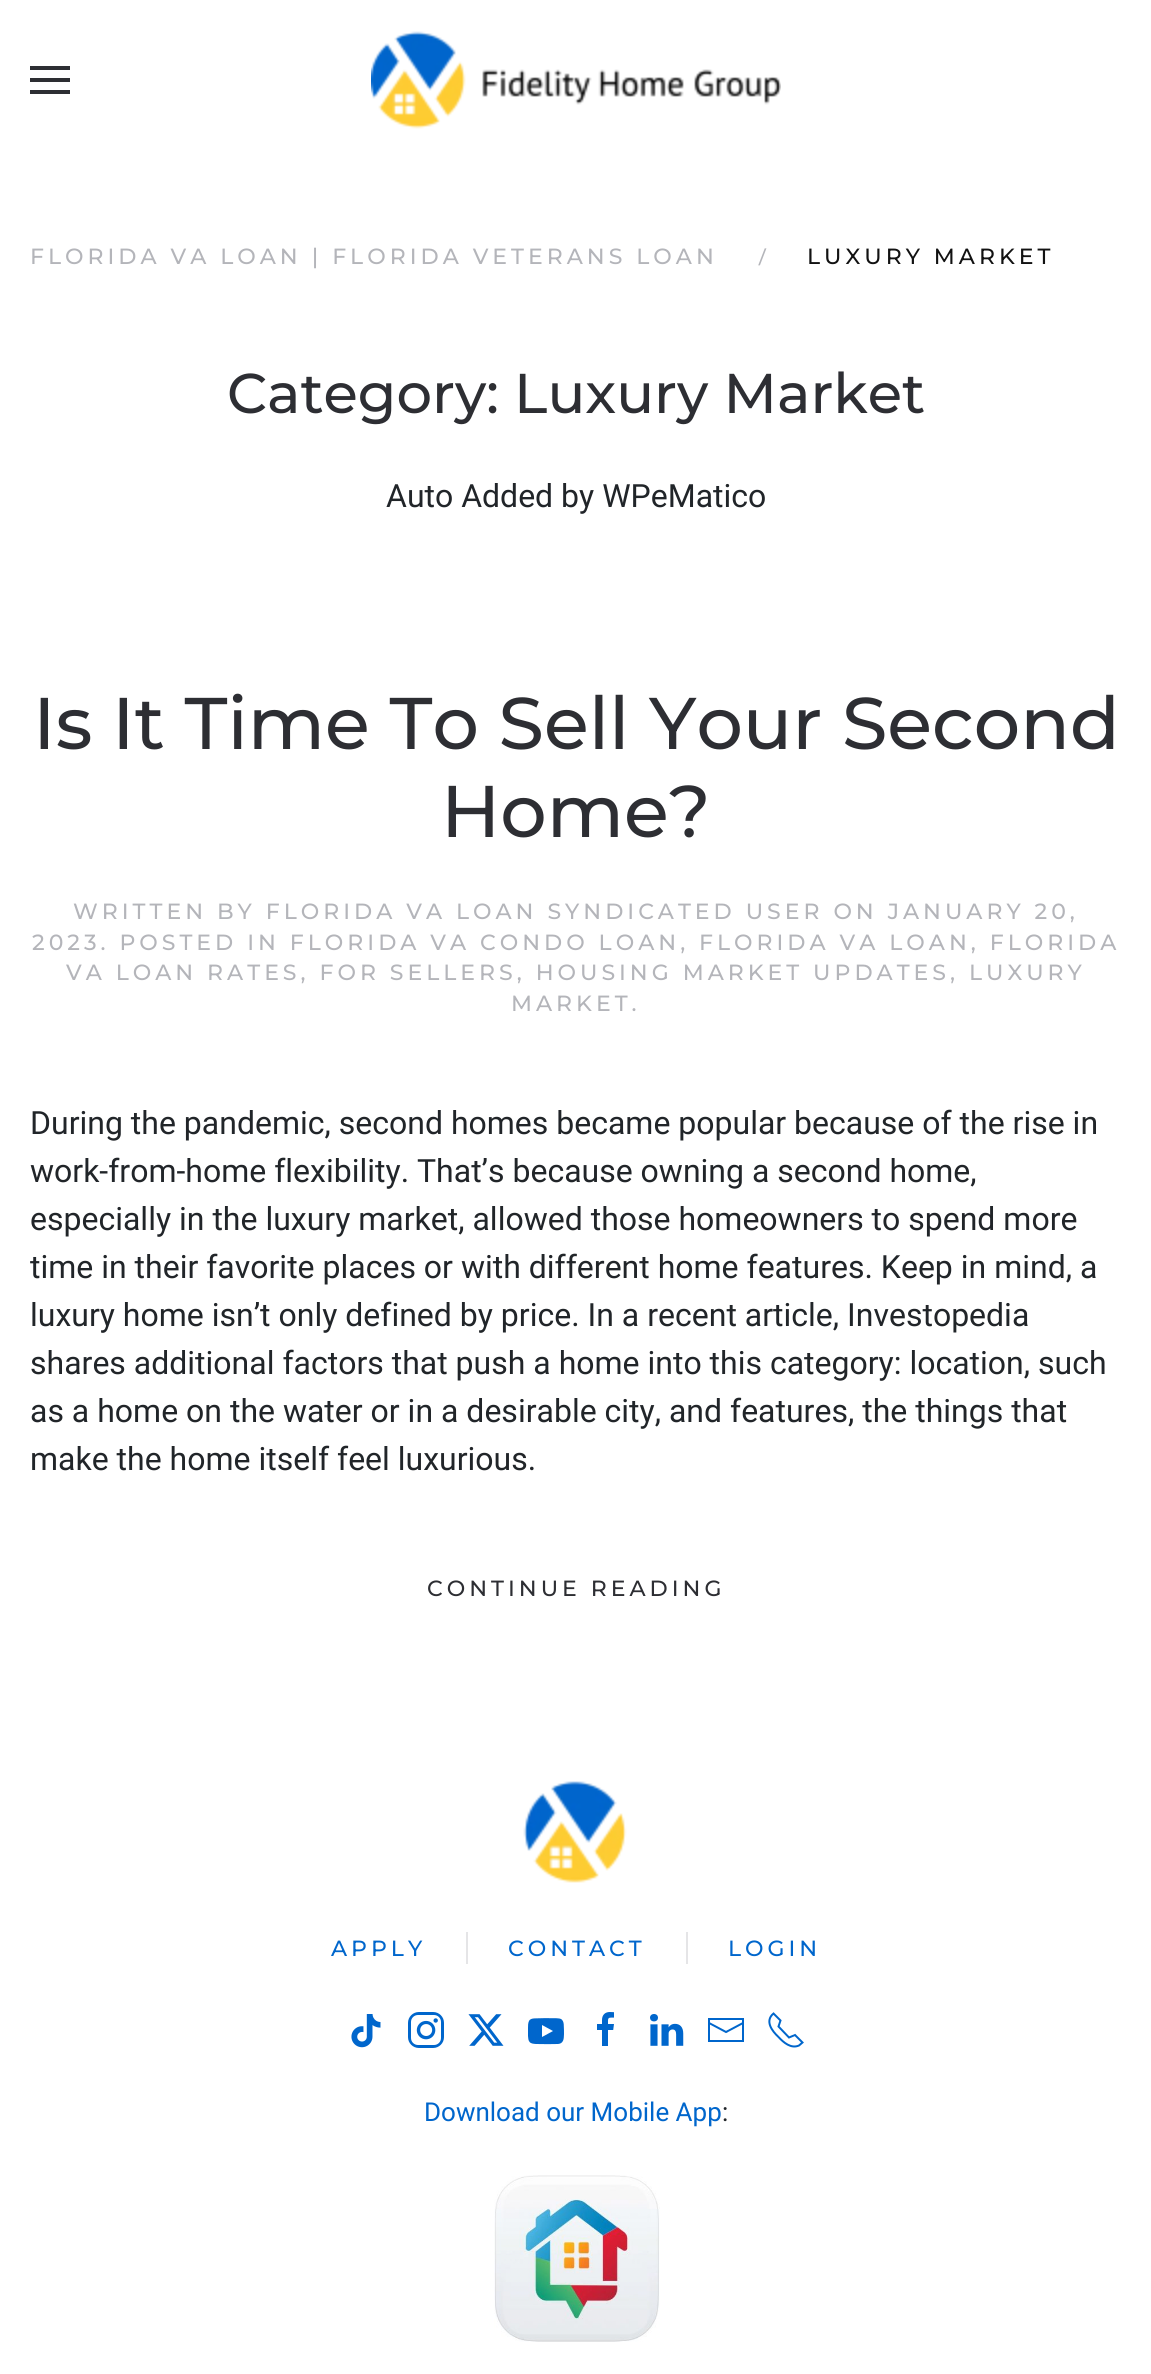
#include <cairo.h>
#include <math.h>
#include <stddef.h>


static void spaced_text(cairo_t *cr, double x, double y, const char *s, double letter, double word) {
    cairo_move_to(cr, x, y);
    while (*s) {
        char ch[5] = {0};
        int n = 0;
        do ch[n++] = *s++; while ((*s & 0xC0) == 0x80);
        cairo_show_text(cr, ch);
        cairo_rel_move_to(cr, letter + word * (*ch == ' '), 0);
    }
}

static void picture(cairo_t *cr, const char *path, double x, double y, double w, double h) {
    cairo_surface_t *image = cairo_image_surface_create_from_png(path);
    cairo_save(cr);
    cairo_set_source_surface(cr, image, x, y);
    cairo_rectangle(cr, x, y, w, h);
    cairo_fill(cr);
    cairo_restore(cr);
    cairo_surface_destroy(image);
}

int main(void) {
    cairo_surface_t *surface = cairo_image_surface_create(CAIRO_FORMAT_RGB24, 1151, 2374);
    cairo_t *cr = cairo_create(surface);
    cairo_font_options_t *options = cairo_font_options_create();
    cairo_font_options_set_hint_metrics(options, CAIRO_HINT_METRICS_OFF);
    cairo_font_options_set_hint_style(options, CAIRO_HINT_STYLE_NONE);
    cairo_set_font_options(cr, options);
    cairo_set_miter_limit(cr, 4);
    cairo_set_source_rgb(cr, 1, 1, 1);
    cairo_paint(cr);
    cairo_set_source_rgb(cr, 0.176, 0.18, 0.2);
    cairo_rectangle(cr, 30, 66, 40, 4);
    cairo_fill(cr);
    cairo_rectangle(cr, 30, 78, 40, 4);
    cairo_fill(cr);
    cairo_rectangle(cr, 30, 90, 40, 4);
    cairo_fill(cr);
    picture(cr, "img1.png", 371, 31, 410, 98);
    cairo_select_font_face(cr, "Montserrat Thin", CAIRO_FONT_SLANT_NORMAL, CAIRO_FONT_WEIGHT_NORMAL);
    cairo_set_font_size(cr, 22);
    cairo_set_source_rgb(cr, 0.706, 0.71, 0.729);
    spaced_text(cr, 30, 264, "FLORIDA VA LOAN | FLORIDA VETERANS LOAN", 4, 0);
    cairo_select_font_face(cr, "Roboto", CAIRO_FONT_SLANT_NORMAL, CAIRO_FONT_WEIGHT_NORMAL);
    cairo_move_to(cr, 758, 264);
    cairo_show_text(cr, "/");
    cairo_select_font_face(cr, "Montserrat Thin", CAIRO_FONT_SLANT_NORMAL, CAIRO_FONT_WEIGHT_NORMAL);
    cairo_set_source_rgb(cr, 0.071, 0.071, 0.071);
    spaced_text(cr, 807, 264, "LUXURY MARKET", 4, 0);
    cairo_set_font_size(cr, 56);
    cairo_set_source_rgb(cr, 0.176, 0.18, 0.2);
    cairo_move_to(cr, 227, 413);
    cairo_show_text(cr, "Category: Luxury Market");
    cairo_select_font_face(cr, "Roboto", CAIRO_FONT_SLANT_NORMAL, CAIRO_FONT_WEIGHT_NORMAL);
    cairo_set_font_size(cr, 32);
    cairo_set_source_rgb(cr, 0.129, 0.145, 0.161);
    cairo_move_to(cr, 386, 507);
    cairo_show_text(cr, "Auto Added by WPeMatico");
    cairo_select_font_face(cr, "Montserrat Thin", CAIRO_FONT_SLANT_NORMAL, CAIRO_FONT_WEIGHT_NORMAL);
    cairo_set_font_size(cr, 73.1);
    cairo_set_source_rgb(cr, 0.176, 0.18, 0.2);
    cairo_move_to(cr, 33, 749);
    cairo_show_text(cr, "Is It Time To Sell Your Second");
    cairo_move_to(cr, 441, 837);
    cairo_show_text(cr, "Home?");
    cairo_set_font_size(cr, 22);
    cairo_set_source_rgb(cr, 0.706, 0.71, 0.729);
    spaced_text(cr, 73, 919, "WRITTEN BY FLORIDA VA LOAN SYNDICATED USER ON JANUARY 20,", 4, 0);
    spaced_text(cr, 32, 950, "2023. POSTED IN FLORIDA VA CONDO LOAN, FLORIDA VA LOAN, FLORIDA", 4, 0);
    spaced_text(cr, 66, 980, "VA LOAN RATES, FOR SELLERS, HOUSING MARKET UPDATES, LUXURY", 4, 0);
    spaced_text(cr, 511, 1011, "MARKET.", 4, 0);
    cairo_select_font_face(cr, "Roboto", CAIRO_FONT_SLANT_NORMAL, CAIRO_FONT_WEIGHT_NORMAL);
    cairo_set_font_size(cr, 32);
    cairo_set_source_rgb(cr, 0.129, 0.145, 0.161);
    cairo_move_to(cr, 30, 1134);
    cairo_show_text(cr, "During the pandemic, second homes became popular because of the rise in");
    cairo_move_to(cr, 30, 1182);
    cairo_show_text(cr, "work-from-home flexibility. That’s because owning a second home,");
    cairo_move_to(cr, 30, 1230);
    cairo_show_text(cr, "especially in the luxury market, allowed those homeowners to spend more");
    cairo_move_to(cr, 30, 1278);
    cairo_show_text(cr, "time in their favorite places or with different home features. Keep in mind, a");
    cairo_move_to(cr, 30, 1326);
    cairo_show_text(cr, "luxury home isn’t only defined by price. In a recent article, Investopedia");
    cairo_move_to(cr, 30, 1374);
    cairo_show_text(cr, "shares additional factors that push a home into this category: location, such");
    cairo_move_to(cr, 30, 1422);
    cairo_show_text(cr, "as a home on the water or in a desirable city, and features, the things that");
    cairo_move_to(cr, 30, 1470);
    cairo_show_text(cr, "make the home itself feel luxurious.");
    cairo_select_font_face(cr, "Montserrat Thin", CAIRO_FONT_SLANT_NORMAL, CAIRO_FONT_WEIGHT_NORMAL);
    cairo_set_font_size(cr, 22);
    cairo_set_source_rgb(cr, 0.176, 0.18, 0.2);
    spaced_text(cr, 427, 1596, "CONTINUE READING", 4, 0);
    picture(cr, "img2.png", 523, 1781, 104, 102);
    cairo_set_source_rgb(cr, 0, 0.4, 0.8);
    spaced_text(cr, 331, 1956, "APPLY", 4, 0);
    cairo_set_source_rgb(cr, 0.898, 0.898, 0.906);
    cairo_rectangle(cr, 466, 1932, 2, 32);
    cairo_fill(cr);
    cairo_set_source_rgb(cr, 0, 0.4, 0.8);
    spaced_text(cr, 508, 1956, "CONTACT", 4, 0);
    cairo_set_source_rgb(cr, 0.898, 0.898, 0.906);
    cairo_rectangle(cr, 686, 1932, 2, 32);
    cairo_fill(cr);
    cairo_set_source_rgb(cr, 0, 0.4, 0.8);
    spaced_text(cr, 728, 1956, "LOGIN", 4, 0);
    picture(cr, "img3.png", 351, 2014, 30, 34);
    picture(cr, "img4.png", 408, 2012, 36, 36);
    picture(cr, "img5.png", 468, 2014, 36, 32);
    picture(cr, "img6.png", 528, 2018, 36, 27);
    picture(cr, "img7.png", 597, 2012, 17, 34);
    picture(cr, "img8.png", 650, 2014, 34, 32);
    cairo_new_path(cr);
    cairo_move_to(cr, 709, 2023);
    cairo_line_to(cr, 726, 2032);
    cairo_line_to(cr, 743, 2023);
    cairo_stroke(cr);
    cairo_new_path(cr);
    cairo_move_to(cr, 708, 2018);
    cairo_line_to(cr, 708, 2042);
    cairo_line_to(cr, 744, 2042);
    cairo_line_to(cr, 744, 2018);
    cairo_close_path(cr);
    cairo_move_to(cr, 742, 2040);
    cairo_line_to(cr, 710, 2040);
    cairo_line_to(cr, 710, 2020);
    cairo_line_to(cr, 742, 2020);
    cairo_close_path(cr);
    cairo_fill(cr);
    cairo_new_path(cr);
    cairo_move_to(cr, 778.5, 2037);
    cairo_curve_to(cr, 783.5, 2042.5, 791, 2049, 799, 2045.5);
    cairo_line_to(cr, 802.5, 2042.5);
    cairo_line_to(cr, 795, 2035);
    cairo_line_to(cr, 789, 2037.5);
    cairo_line_to(cr, 778.5, 2026.5);
    cairo_line_to(cr, 780.5, 2020.5);
    cairo_line_to(cr, 773.5, 2013.5);
    cairo_curve_to(cr, 764.5, 2021, 772, 2031, 778.5, 2037);
    cairo_stroke(cr);
    cairo_select_font_face(cr, "Roboto", CAIRO_FONT_SLANT_NORMAL, CAIRO_FONT_WEIGHT_NORMAL);
    cairo_set_font_size(cr, 26);
    cairo_move_to(cr, 424, 2121);
    cairo_show_text(cr, "Download our Mobile App");
    cairo_set_source_rgb(cr, 0.129, 0.145, 0.161);
    cairo_move_to(cr, 722, 2121);
    cairo_show_text(cr, ":");
    picture(cr, "img9.png", 494, 2175, 166, 167);
    cairo_surface_write_to_png(surface, "page.png");
    cairo_font_options_destroy(options);
    cairo_destroy(cr);
    cairo_surface_destroy(surface);
    return 0;
}
